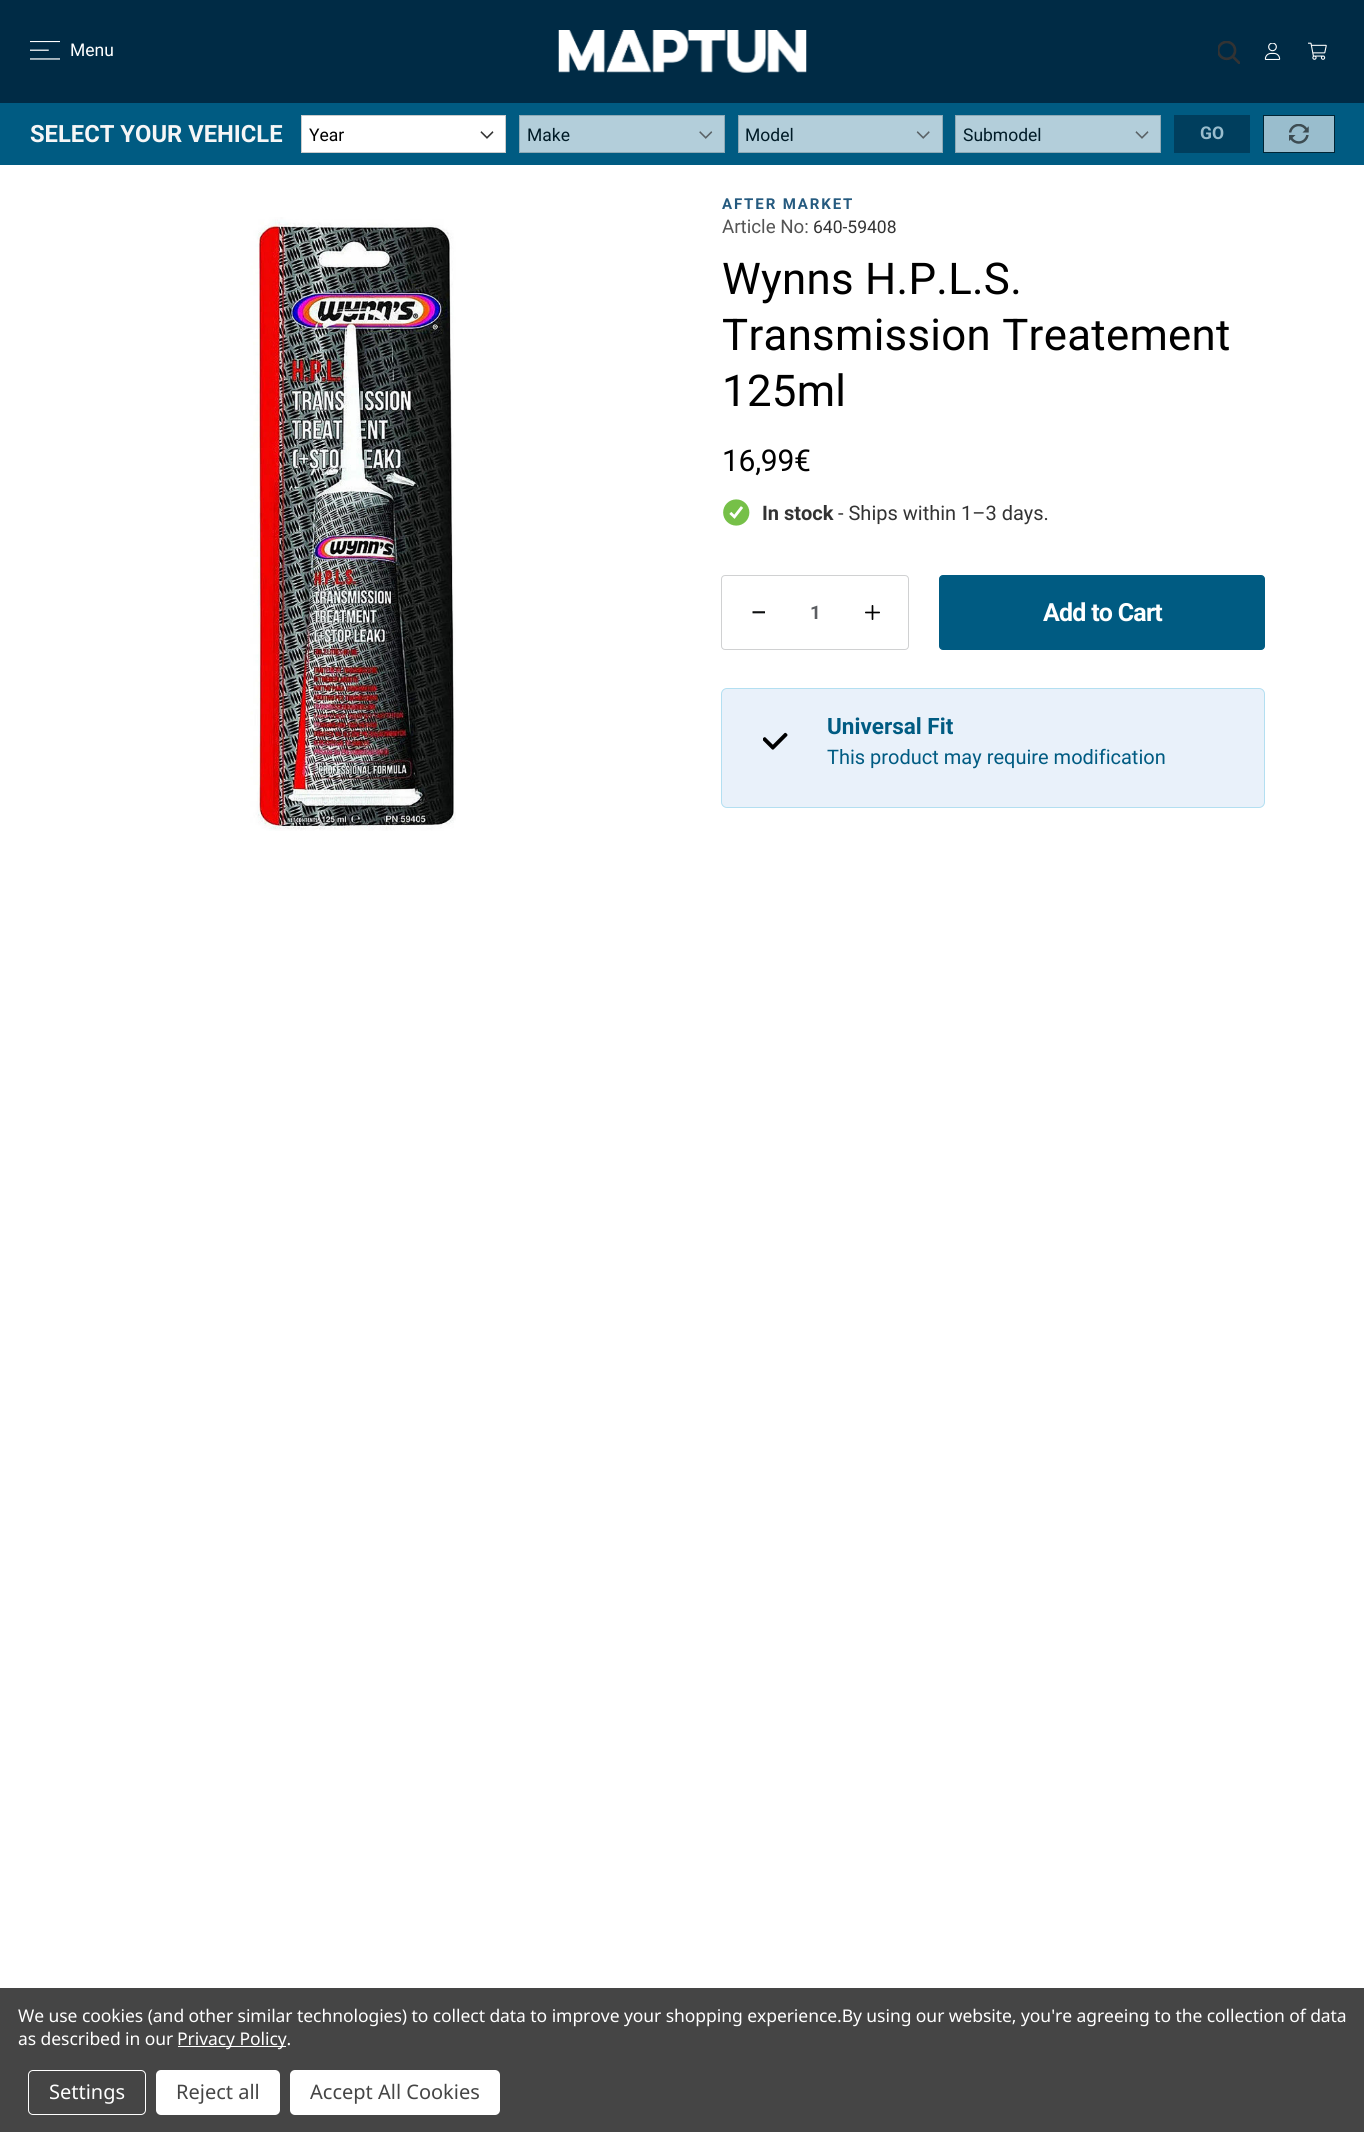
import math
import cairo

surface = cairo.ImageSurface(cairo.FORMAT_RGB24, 1364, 2132)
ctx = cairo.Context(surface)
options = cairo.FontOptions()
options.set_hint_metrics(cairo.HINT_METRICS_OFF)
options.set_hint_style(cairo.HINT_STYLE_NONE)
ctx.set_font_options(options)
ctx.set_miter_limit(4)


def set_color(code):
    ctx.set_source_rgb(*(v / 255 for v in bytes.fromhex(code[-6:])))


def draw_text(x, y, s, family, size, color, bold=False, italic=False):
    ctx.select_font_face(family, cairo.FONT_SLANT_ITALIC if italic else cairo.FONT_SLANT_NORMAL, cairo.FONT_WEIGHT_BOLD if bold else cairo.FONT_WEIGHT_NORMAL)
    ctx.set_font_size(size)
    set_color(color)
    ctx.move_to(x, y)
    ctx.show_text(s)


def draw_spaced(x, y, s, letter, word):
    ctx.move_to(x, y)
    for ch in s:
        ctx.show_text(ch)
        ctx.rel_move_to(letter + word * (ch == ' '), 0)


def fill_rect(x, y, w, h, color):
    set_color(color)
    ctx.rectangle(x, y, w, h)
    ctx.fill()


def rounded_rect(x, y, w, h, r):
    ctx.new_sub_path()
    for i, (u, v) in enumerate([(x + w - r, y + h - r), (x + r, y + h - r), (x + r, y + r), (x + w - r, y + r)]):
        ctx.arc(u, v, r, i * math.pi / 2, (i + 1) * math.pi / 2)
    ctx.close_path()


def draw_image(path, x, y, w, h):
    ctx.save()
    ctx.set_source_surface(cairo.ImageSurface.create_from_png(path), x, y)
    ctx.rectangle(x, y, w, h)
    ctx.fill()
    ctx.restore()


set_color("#ffffff")
ctx.paint()
fill_rect(0, 0, 1364, 103, "#002b45")
draw_image("assets/img1.png", 30, 41, 30, 19)
draw_text(70, 56, "Menu", "Roboto", 17.5, "#ffffff")
draw_image("assets/img2.png", 558, 30, 249, 43)
draw_image("assets/img3.png", 1218, 41, 22, 23)
draw_image("assets/img4.png", 1264, 43, 17, 17)
draw_image("assets/img5.png", 1308, 42, 19, 18)
fill_rect(0, 103, 1364, 62, "#005b82")
draw_text(30, 142, "SELECT YOUR VEHICLE", "Roboto", 23.75, "#f6f6f6", bold=True)
fill_rect(302, 116, 203, 36, "#ffffff")
draw_image("assets/img6.png", 480, 131, 14, 8)
ctx.rectangle(301.5, 115.5, 204, 37)
set_color("#cccccc")
ctx.set_line_width(1)
ctx.stroke()
draw_text(309, 141, "Year", "Roboto", 17.5, "#000000")
fill_rect(520, 116, 204, 36, "#b3ceda")
draw_image("assets/img7.png", 699, 131, 14, 8)
ctx.rectangle(519.5, 115.5, 205, 37)
set_color("#8faab6")
ctx.stroke()
draw_text(527, 141, "Make", "Roboto", 17.5, "#001b27")
fill_rect(739, 116, 203, 36, "#b3ceda")
draw_image("assets/img8.png", 916, 131, 14, 8)
ctx.rectangle(738.5, 115.5, 204, 37)
set_color("#8faab6")
ctx.stroke()
draw_text(745, 141, "Model", "Roboto", 17.5, "#001b27")
fill_rect(956, 116, 204, 36, "#b3ceda")
draw_image("assets/img9.png", 1135, 131, 14, 8)
ctx.rectangle(955.5, 115.5, 205, 37)
set_color("#8faab6")
ctx.stroke()
draw_text(963, 141, "Submodel", "Roboto", 17.5, "#001b27")
fill_rect(1174, 115, 76, 38, "#003e5d")
draw_text(1200, 139, "GO", "Roboto", 17.5, "#99bdcd", bold=True)
ctx.rectangle(1263.5, 115.5, 71, 37)
ctx.fill_preserve()
set_color("#002434")
ctx.stroke()
draw_image("assets/img10.png", 1289, 124, 20, 20)
draw_image("assets/img11.png", 250, 217, 206, 614)
ctx.set_font_size(15)
set_color("#255a7f")
draw_spaced(722, 209, "AFTER MARKET", 1.9, 0)
draw_text(722, 233, "Article No:", "Roboto", 18.75, "#555555")
draw_text(813, 233, "640-59408", "Roboto", 17.5, "#333333")
ctx.set_font_size(43.75)
set_color("#000000")
draw_spaced(722, 294, "Wynns H.P.L.S.", 0.3, 0)
draw_spaced(722, 350, "Transmission Treatement", 0.3, 0)
draw_spaced(722, 406, "125ml", 0.3, 0)
ctx.set_font_size(30)
draw_spaced(722, 471, "16,99€", -0.25, 0)
draw_image("assets/img12.png", 723, 499, 27, 27)
draw_text(762, 520, "In stock", "Roboto", 20, "#333333", bold=True)
draw_text(838, 520, "- Ships within 1–3 days.", "Roboto", 20, "#333333")
rounded_rect(721.5, 575.5, 187, 74, 3.5)
set_color("#d0d1d2")
ctx.stroke()
draw_image("assets/img13.png", 752, 611, 13, 3)
draw_text(810, 619, "1", "Roboto", 18.75, "#5c5e62", bold=True)
draw_image("assets/img14.png", 865, 605, 15, 15)
set_color("#005b82")
rounded_rect(939.5, 575.5, 325, 74, 3.5)
ctx.fill_preserve()
ctx.stroke()
ctx.set_font_size(25)
set_color("#ffffff")
draw_spaced(1043, 621, "Add to Cart", -0.75, 0)
set_color("#e9f1fa")
rounded_rect(721.5, 688.5, 543, 119, 5.5)
ctx.fill_preserve()
set_color("#b3dff1")
ctx.stroke()
draw_image("assets/img15.png", 763, 732, 25, 18)
draw_text(827, 734, "Universal Fit", "Roboto", 22.5, "#005b82", bold=True)
draw_text(827, 764, "This product may require modification", "Roboto", 20, "#005b82")
fill_rect(0, 1988, 1364, 144, "#454545")
ctx.select_font_face("Noto Sans")
ctx.set_font_size(17.5)
set_color("#ffffff")
draw_spaced(18, 2022, "We use cookies (and other similar technologies) to collect data to improve your shopping experience.By using our website, you're agreeing to the collection of data", -0.06, 0)
draw_spaced(18, 2045, "as described in our", -0.06, 0)
fill_rect(178, 2046, 108, 1, "#ffffff")
draw_spaced(177, 2045, "Privacy Policy.", -0.06, 0)
rounded_rect(28.5, 2070.5, 117, 44, 4.5)
ctx.stroke()
draw_text(49, 2099, "Settings", "Noto Sans", 20, "#ffffff")
rounded_rect(156, 2070, 124, 45, 5)
ctx.fill()
draw_text(176, 2099, "Reject all", "Noto Sans", 20, "#454545")
set_color("#ffffff")
rounded_rect(290, 2070, 210, 45, 5)
ctx.fill()
draw_text(310, 2099, "Accept All Cookies", "Noto Sans", 20, "#454545")
surface.write_to_png("output.png")
